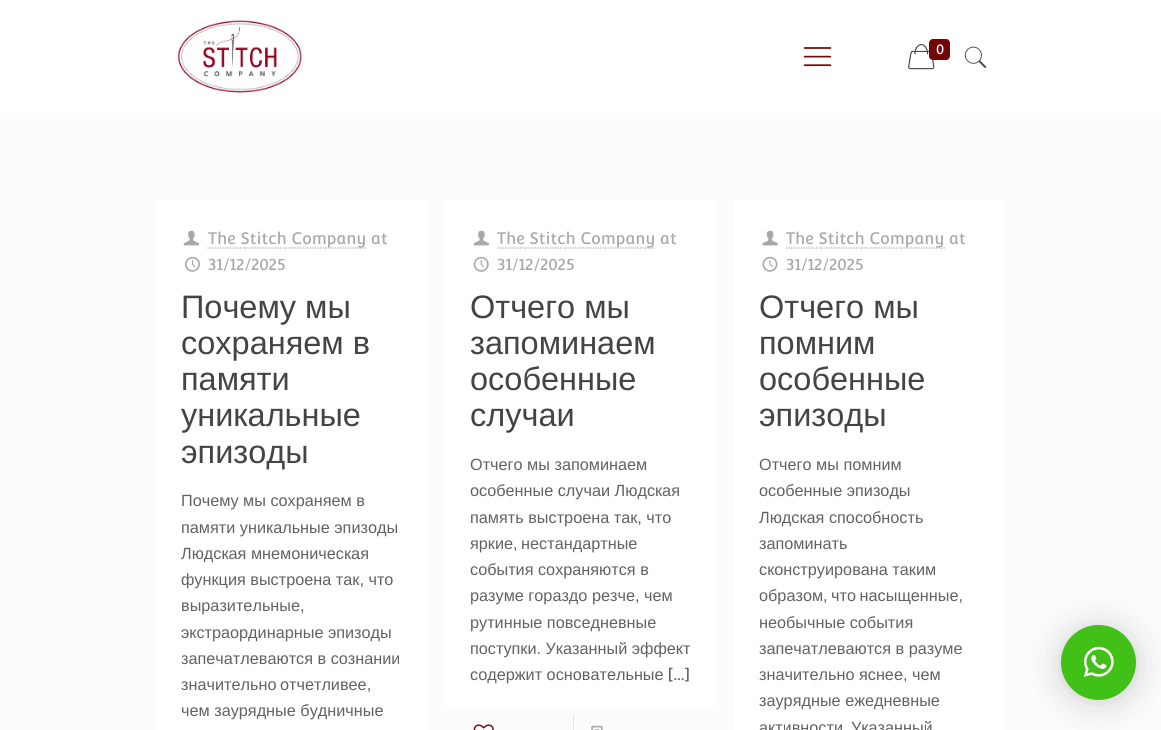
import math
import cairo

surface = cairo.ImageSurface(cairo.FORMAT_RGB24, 1161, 730)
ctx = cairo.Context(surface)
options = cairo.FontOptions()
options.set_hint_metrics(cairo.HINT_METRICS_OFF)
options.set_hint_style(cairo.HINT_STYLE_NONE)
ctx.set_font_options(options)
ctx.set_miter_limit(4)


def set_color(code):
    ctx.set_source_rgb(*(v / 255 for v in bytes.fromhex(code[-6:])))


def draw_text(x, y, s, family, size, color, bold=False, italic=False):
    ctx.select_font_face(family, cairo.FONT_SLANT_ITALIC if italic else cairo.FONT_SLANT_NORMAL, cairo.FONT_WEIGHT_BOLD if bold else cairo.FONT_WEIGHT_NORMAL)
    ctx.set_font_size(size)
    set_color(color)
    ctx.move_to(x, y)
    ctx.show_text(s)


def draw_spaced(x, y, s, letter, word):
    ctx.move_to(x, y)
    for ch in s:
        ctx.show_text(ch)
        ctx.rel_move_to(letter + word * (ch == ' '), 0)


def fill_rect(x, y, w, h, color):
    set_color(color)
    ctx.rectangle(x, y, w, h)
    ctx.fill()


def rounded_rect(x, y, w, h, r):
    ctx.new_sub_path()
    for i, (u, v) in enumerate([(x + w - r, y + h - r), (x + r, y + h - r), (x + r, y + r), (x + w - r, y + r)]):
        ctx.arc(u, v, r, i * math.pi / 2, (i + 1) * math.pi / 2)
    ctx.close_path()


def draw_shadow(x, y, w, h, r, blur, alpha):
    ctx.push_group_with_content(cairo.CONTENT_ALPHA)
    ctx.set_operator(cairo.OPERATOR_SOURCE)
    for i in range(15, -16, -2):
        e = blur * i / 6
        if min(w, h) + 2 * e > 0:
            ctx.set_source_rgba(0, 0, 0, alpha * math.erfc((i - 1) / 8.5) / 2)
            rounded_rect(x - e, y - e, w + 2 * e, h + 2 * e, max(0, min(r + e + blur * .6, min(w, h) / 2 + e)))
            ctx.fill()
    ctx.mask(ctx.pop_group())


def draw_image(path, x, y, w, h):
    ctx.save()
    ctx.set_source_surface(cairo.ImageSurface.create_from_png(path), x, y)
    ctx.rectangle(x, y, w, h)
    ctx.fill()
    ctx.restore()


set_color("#fcfcfc")
ctx.paint()
fill_rect(0, 0, 1161, 113, "#ffffff")
draw_image("assets/img1.png", 177, 20, 125, 73)
draw_image("assets/img2.png", 803, 47, 29, 20)
draw_image("assets/img3.png", 908, 44, 27, 26)
set_color("#720707")
rounded_rect(929, 39, 21, 21, 4)
ctx.fill()
draw_text(936, 54, "0", "Convergence", 14, "#ffffff")
draw_image("assets/img4.png", 964, 46, 23, 23)
fill_rect(156, 200, 272, 530, "#ffffff")
draw_image("assets/img5.png", 183, 230, 16, 16)
ctx.new_path()
ctx.move_to(207.5, 248)
ctx.line_to(366, 248)
set_color("#a8a8a8")
ctx.set_line_width(1.2)
ctx.set_dash([1.25, 1.25])
ctx.stroke()
draw_text(208, 244, "The Stitch Company at", "Convergence", 16.25, "#a8a8a8")
draw_image("assets/img6.png", 185, 256, 15, 16)
draw_text(208, 270, "31/12/2025", "Convergence", 16.25, "#a8a8a8")
draw_text(181, 318, "Почему мы", "Liberation Sans", 32.5, "#444444")
draw_text(181, 354, "сохраняем в", "Liberation Sans", 32.5, "#444444")
draw_text(181, 390, "памяти", "Liberation Sans", 32.5, "#444444")
draw_text(181, 426, "уникальные", "Liberation Sans", 32.5, "#444444")
draw_text(181, 463, "эпизоды", "Liberation Sans", 32.5, "#444444")
draw_text(181, 506, "Почему мы сохраняем в", "Liberation Sans", 16.25, "#626262")
draw_text(181, 533, "памяти уникальные эпизоды", "Liberation Sans", 16.25, "#626262")
draw_text(181, 559, "Людская мнемоническая", "Liberation Sans", 16.25, "#626262")
draw_text(181, 585, "функция выстроена так, что", "Liberation Sans", 16.25, "#626262")
draw_text(181, 611, "выразительные,", "Liberation Sans", 16.25, "#626262")
draw_text(181, 638, "экстраординарные эпизоды", "Liberation Sans", 16.25, "#626262")
draw_text(181, 664, "запечатлеваются в сознании", "Liberation Sans", 16.25, "#626262")
draw_spaced(181, 690, "значительно отчетливее,", 0, -1)
draw_text(181, 716, "чем заурядные будничные", "Liberation Sans", 16.25, "#626262")
fill_rect(445, 200, 271, 506, "#ffffff")
draw_image("assets/img5.png", 473, 230, 16, 16)
ctx.new_path()
ctx.move_to(497.5, 248)
ctx.line_to(655, 248)
set_color("#a8a8a8")
ctx.stroke()
draw_text(497, 244, "The Stitch Company at", "Convergence", 16.25, "#a8a8a8")
draw_image("assets/img7.png", 473, 256, 16, 16)
draw_text(497, 270, "31/12/2025", "Convergence", 16.25, "#a8a8a8")
draw_text(470, 318, "Отчего мы", "Liberation Sans", 32.5, "#444444")
draw_text(470, 354, "запоминаем", "Liberation Sans", 32.5, "#444444")
draw_text(470, 390, "особенные", "Liberation Sans", 32.5, "#444444")
draw_text(470, 426, "случаи", "Liberation Sans", 32.5, "#444444")
draw_text(470, 470, "Отчего мы запоминаем", "Liberation Sans", 16.25, "#626262")
draw_text(470, 496, "особенные случаи Людская", "Liberation Sans", 16.25, "#626262")
draw_text(470, 523, "память выстроена так, что", "Liberation Sans", 16.25, "#626262")
draw_spaced(470, 549, "яркие, нестандартные", 0, -1)
draw_text(470, 575, "события сохраняются в", "Liberation Sans", 16.25, "#626262")
draw_text(470, 601, "разуме гораздо резче, чем", "Liberation Sans", 16.25, "#626262")
draw_text(470, 628, "рутинные повседневные", "Liberation Sans", 16.25, "#626262")
draw_text(470, 654, "поступки. Указанный эффект", "Liberation Sans", 16.25, "#626262")
draw_text(470, 680, "содержит основательные", "Liberation Sans", 16.25, "#626262")
draw_text(668, 680, "[…]", "Convergence", 16.25, "#626262")
draw_image("assets/img8.png", 473, 724, 21, 6)
fill_rect(573, 715, 1, 15, "#e6e6e6")
draw_image("assets/img9.png", 591, 725, 12, 5)
fill_rect(734, 200, 271, 530, "#ffffff")
draw_image("assets/img10.png", 762, 230, 16, 16)
ctx.new_path()
ctx.move_to(786, 248)
ctx.line_to(945, 248)
set_color("#a8a8a8")
ctx.stroke()
draw_text(786, 244, "The Stitch Company at", "Convergence", 16.25, "#a8a8a8")
draw_image("assets/img11.png", 762, 256, 16, 16)
draw_text(786, 270, "31/12/2025", "Convergence", 16.25, "#a8a8a8")
draw_text(759, 318, "Отчего мы", "Liberation Sans", 32.5, "#444444")
draw_text(759, 354, "помним", "Liberation Sans", 32.5, "#444444")
draw_text(759, 390, "особенные", "Liberation Sans", 32.5, "#444444")
draw_text(759, 426, "эпизоды", "Liberation Sans", 32.5, "#444444")
draw_text(759, 470, "Отчего мы помним", "Liberation Sans", 16.25, "#626262")
draw_text(759, 496, "особенные эпизоды", "Liberation Sans", 16.25, "#626262")
draw_text(759, 523, "Людская способность", "Liberation Sans", 16.25, "#626262")
draw_text(759, 549, "запоминать", "Liberation Sans", 16.25, "#626262")
draw_text(759, 575, "сконструирована таким", "Liberation Sans", 16.25, "#626262")
draw_spaced(759, 601, "образом, что насыщенные,", 0, -1)
draw_text(759, 628, "необычные события", "Liberation Sans", 16.25, "#626262")
draw_text(759, 654, "запечатлеваются в разуме", "Liberation Sans", 16.25, "#626262")
draw_text(759, 680, "значительно яснее, чем", "Liberation Sans", 16.25, "#626262")
draw_text(759, 706, "заурядные ежедневные", "Liberation Sans", 16.25, "#626262")
draw_spaced(759, 733, "активности. Указанный", 0, -1)
set_color("#000000")
draw_shadow(1061, 628, 75, 75, 37.5, 20, 0.16)
draw_shadow(1061, 626, 75, 75, 37.5, 4, 0.06)
set_color("#41c117")
ctx.arc(1098.5, 662.5, 37.5, 0, 2 * math.pi)
ctx.fill()
draw_image("assets/img12.png", 1083, 646, 31, 31)
surface.write_to_png("output.png")
